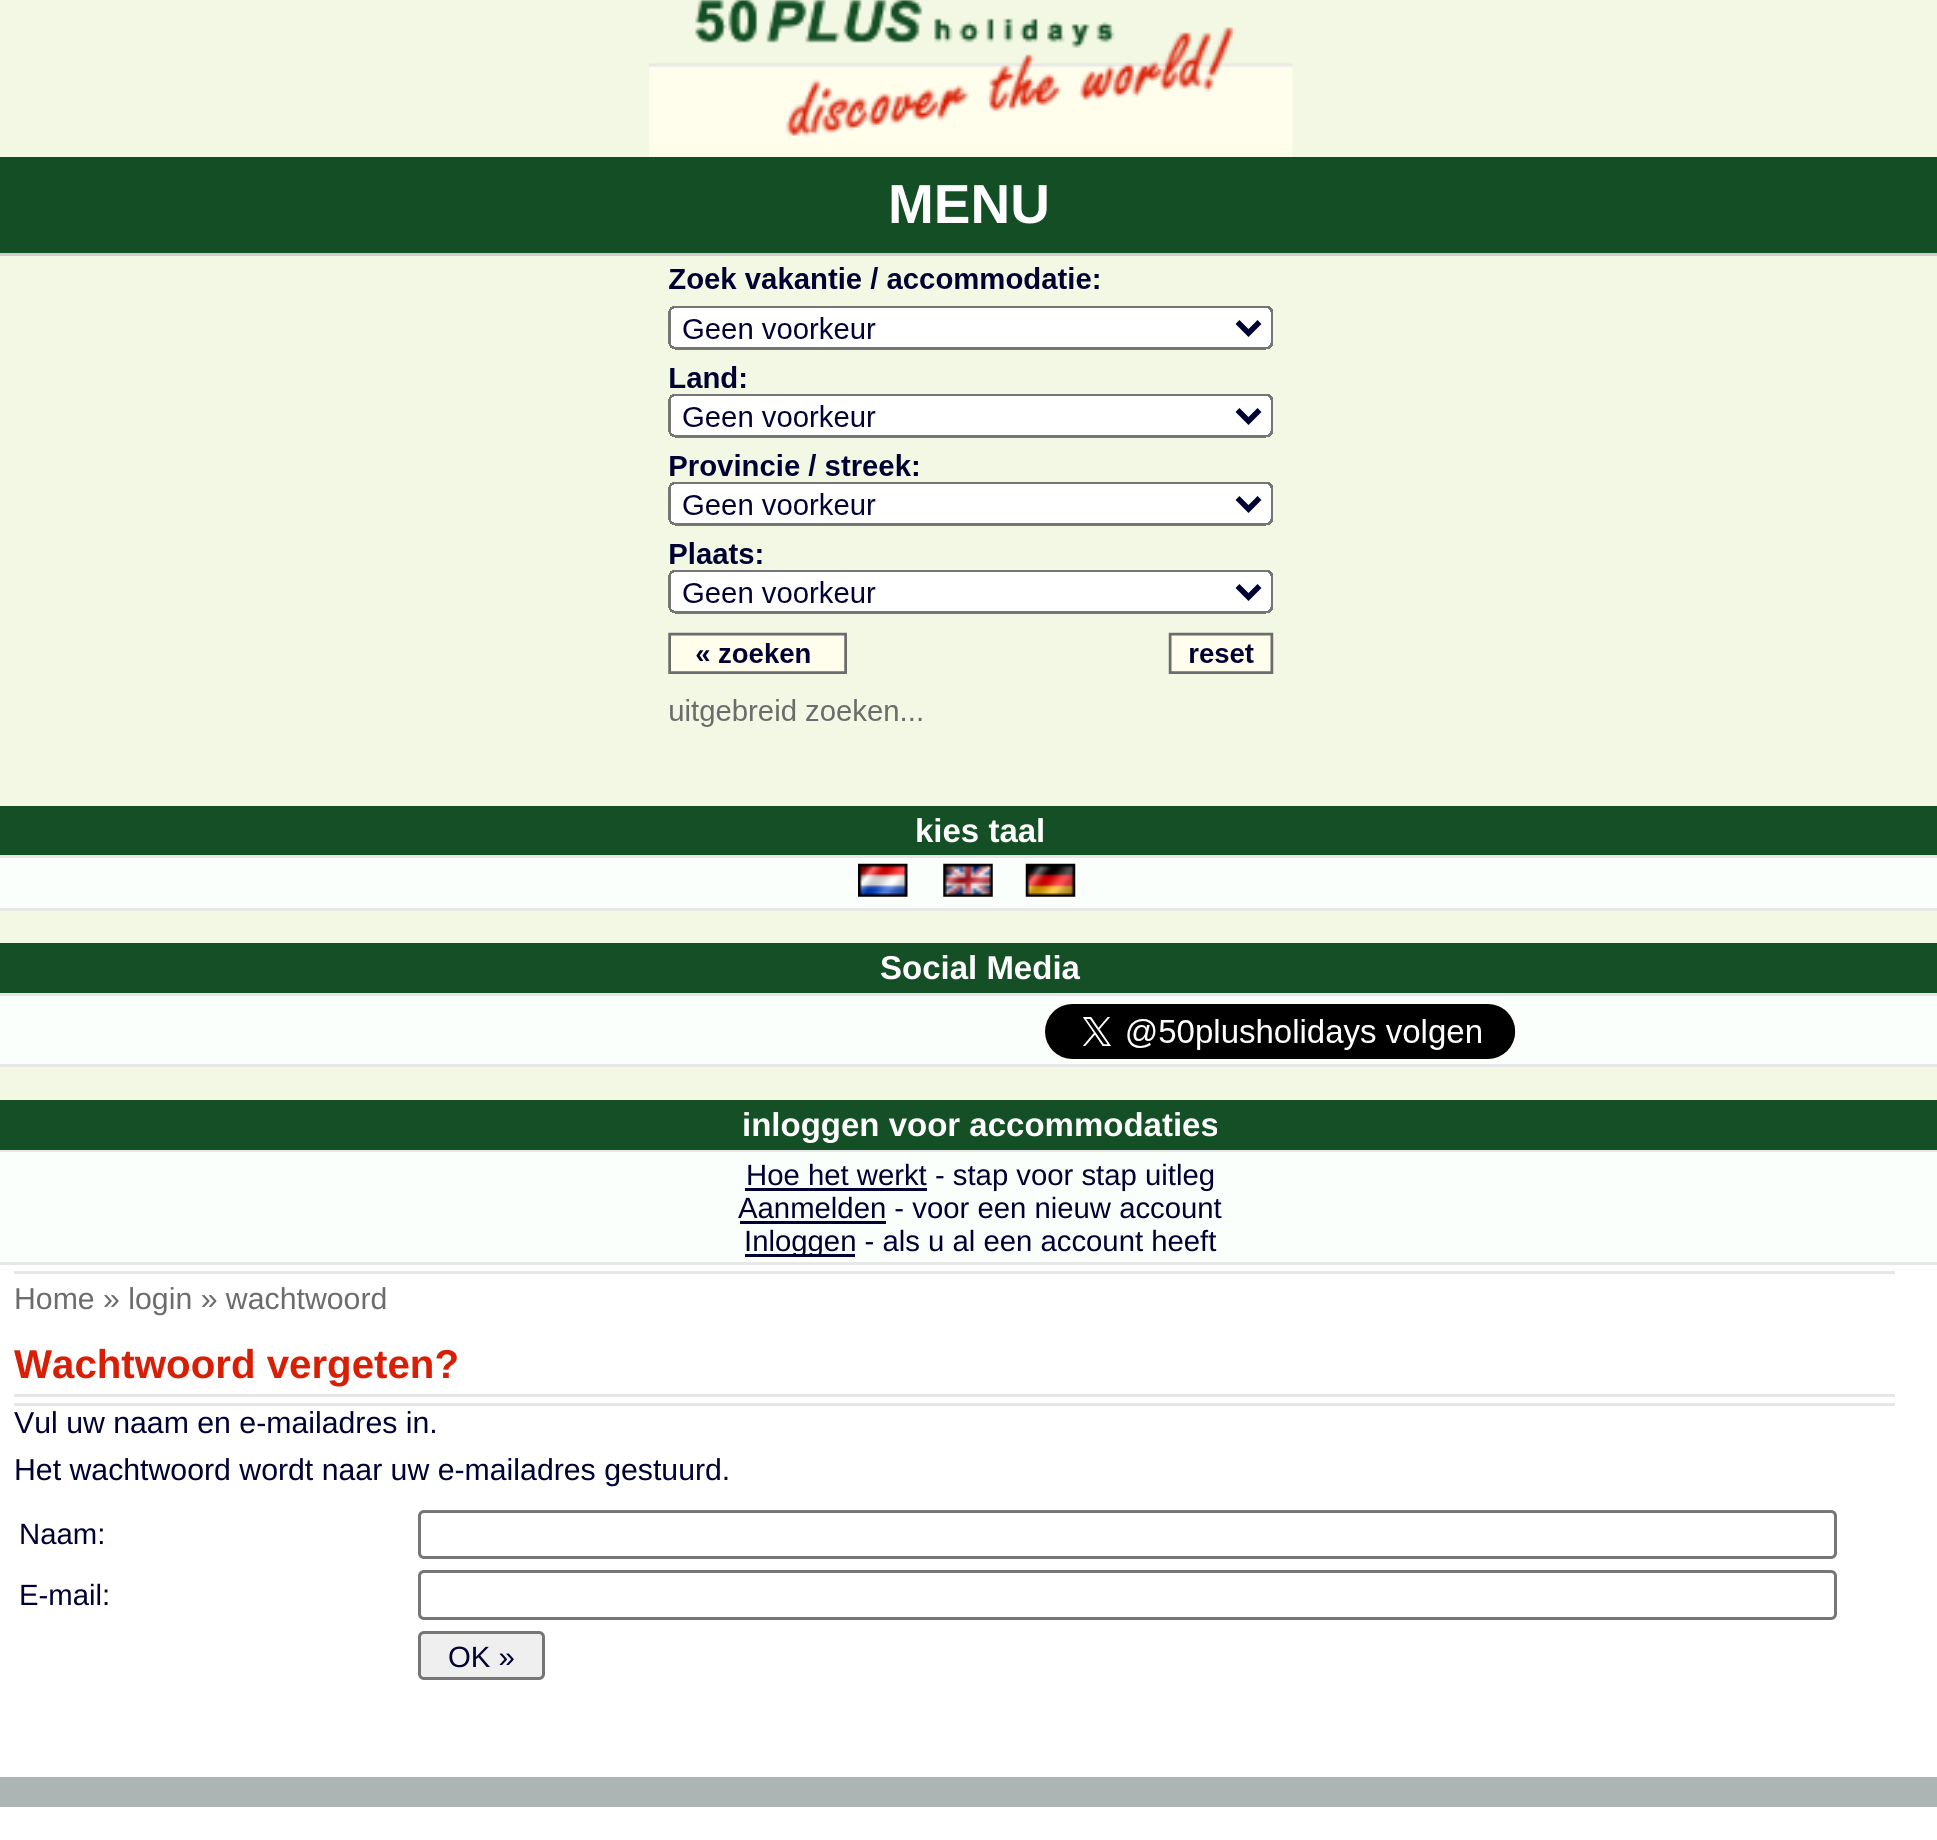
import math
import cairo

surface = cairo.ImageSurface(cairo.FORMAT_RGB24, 1937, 1840)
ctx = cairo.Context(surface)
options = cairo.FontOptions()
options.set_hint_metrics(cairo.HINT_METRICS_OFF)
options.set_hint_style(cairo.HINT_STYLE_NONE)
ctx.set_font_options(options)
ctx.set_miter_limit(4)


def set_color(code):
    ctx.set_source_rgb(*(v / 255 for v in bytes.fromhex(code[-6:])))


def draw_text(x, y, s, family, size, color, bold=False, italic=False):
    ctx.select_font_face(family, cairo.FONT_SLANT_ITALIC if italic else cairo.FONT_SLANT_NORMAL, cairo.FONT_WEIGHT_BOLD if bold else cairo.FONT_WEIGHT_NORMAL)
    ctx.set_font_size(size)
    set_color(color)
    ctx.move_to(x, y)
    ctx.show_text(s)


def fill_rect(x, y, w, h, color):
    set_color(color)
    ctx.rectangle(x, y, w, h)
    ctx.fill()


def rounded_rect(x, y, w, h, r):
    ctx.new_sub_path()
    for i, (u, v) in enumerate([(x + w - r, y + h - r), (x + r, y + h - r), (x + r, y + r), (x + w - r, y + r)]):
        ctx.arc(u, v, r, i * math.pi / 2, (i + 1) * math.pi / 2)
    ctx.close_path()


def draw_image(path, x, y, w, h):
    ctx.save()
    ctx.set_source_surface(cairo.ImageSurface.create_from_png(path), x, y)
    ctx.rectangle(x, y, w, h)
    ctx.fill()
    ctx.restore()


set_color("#acb5b4")
ctx.paint()
fill_rect(0, 1265, 1937, 512, "#ffffff")
fill_rect(0, 0, 1937, 157, "#f2f8e3")
draw_image("assets/img1.png", 649, 0, 644, 157)
fill_rect(0, 157, 1937, 96, "#134e24")
fill_rect(0, 253, 1937, 3, "#cccccc")
draw_text(888, 223, "MENU", "Liberation Sans", 55, "#ffffff", bold=True)
fill_rect(0, 256, 1937, 844, "#f2f8e3")
draw_image("assets/img2.png", 668, 267, 606, 460)
fill_rect(0, 806, 1937, 49, "#144f25")
fill_rect(0, 855, 1937, 3, "#e7e7e7")
draw_text(915, 842, "kies taal", "Liberation Sans", 33, "#ffffff", bold=True)
fill_rect(0, 858, 1937, 50, "#fbfffc")
fill_rect(0, 908, 1937, 3, "#e7e7e7")
draw_image("assets/img3.png", 858, 863, 50, 34)
draw_image("assets/img4.png", 943, 863, 50, 34)
draw_image("assets/img5.png", 1025, 863, 51, 34)
fill_rect(0, 943, 1937, 50, "#144f25")
fill_rect(0, 993, 1937, 3, "#e7e7e7")
draw_text(880, 979, "Social Media", "Liberation Sans", 33, "#ffffff", bold=True)
fill_rect(0, 996, 1937, 68, "#fbfffc")
fill_rect(0, 1064, 1937, 3, "#e7e7e7")
draw_image("assets/img6.png", 1045, 1004, 471, 55)
fill_rect(0, 1100, 1937, 50, "#144f25")
fill_rect(0, 1150, 1937, 2, "#e7e7e7")
draw_text(742, 1136, "inloggen voor accommodaties", "Liberation Sans", 33, "#ffffff", bold=True)
fill_rect(0, 1152, 1937, 110, "#fbfffc")
fill_rect(0, 1262, 1937, 3, "#e7e7e7")
fill_rect(745, 1188, 182, 3, "#000033")
draw_text(746, 1185, "Hoe het werkt - stap voor stap uitleg", "Liberation Sans", 29.3, "#000033")
draw_text(738, 1218, "Aanmelden - voor een nieuw account", "Liberation Sans", 29.3, "#000033")
fill_rect(740, 1221, 146, 3, "#000033")
fill_rect(745, 1254, 110, 3, "#000033")
draw_text(744, 1251, "Inloggen - als u al een account heeft", "Liberation Sans", 29.3, "#000033")
fill_rect(14, 1271, 1881, 3, "#e7e7e7")
draw_text(14, 1309, "Home » login » wachtwoord", "Liberation Sans", 30.25, "#6c6c6c")
draw_text(14, 1378, "Wachtwoord vergeten?", "Liberation Sans", 40.25, "#d81e05", bold=True)
fill_rect(14, 1394, 1881, 3, "#e7e7e7")
fill_rect(14, 1403, 1881, 3, "#e7e7e7")
draw_text(14, 1433, "Vul uw naam en e-mailadres in.", "Liberation Sans", 30.25, "#000033")
draw_text(14, 1480, "Het wachtwoord wordt naar uw e-mailadres gestuurd.", "Liberation Sans", 30.25, "#000033")
draw_text(19, 1544, "Naam:", "Liberation Sans", 29.3, "#000033")
rounded_rect(419.5, 1511.5, 1416, 46, 4.5)
set_color("#767676")
ctx.set_line_width(3)
ctx.stroke()
draw_text(19, 1605, "E-mail:", "Liberation Sans", 29.3, "#000033")
rounded_rect(419.5, 1571.5, 1416, 47, 4.5)
set_color("#767676")
ctx.stroke()
set_color("#efefef")
rounded_rect(419.5, 1632.5, 124, 46, 4.5)
ctx.fill_preserve()
set_color("#767676")
ctx.stroke()
draw_text(448, 1667, "OK »", "Liberation Sans", 29.3, "#000033")
fill_rect(0, 1807, 1937, 33, "#ffffff")
surface.write_to_png("output.png")
